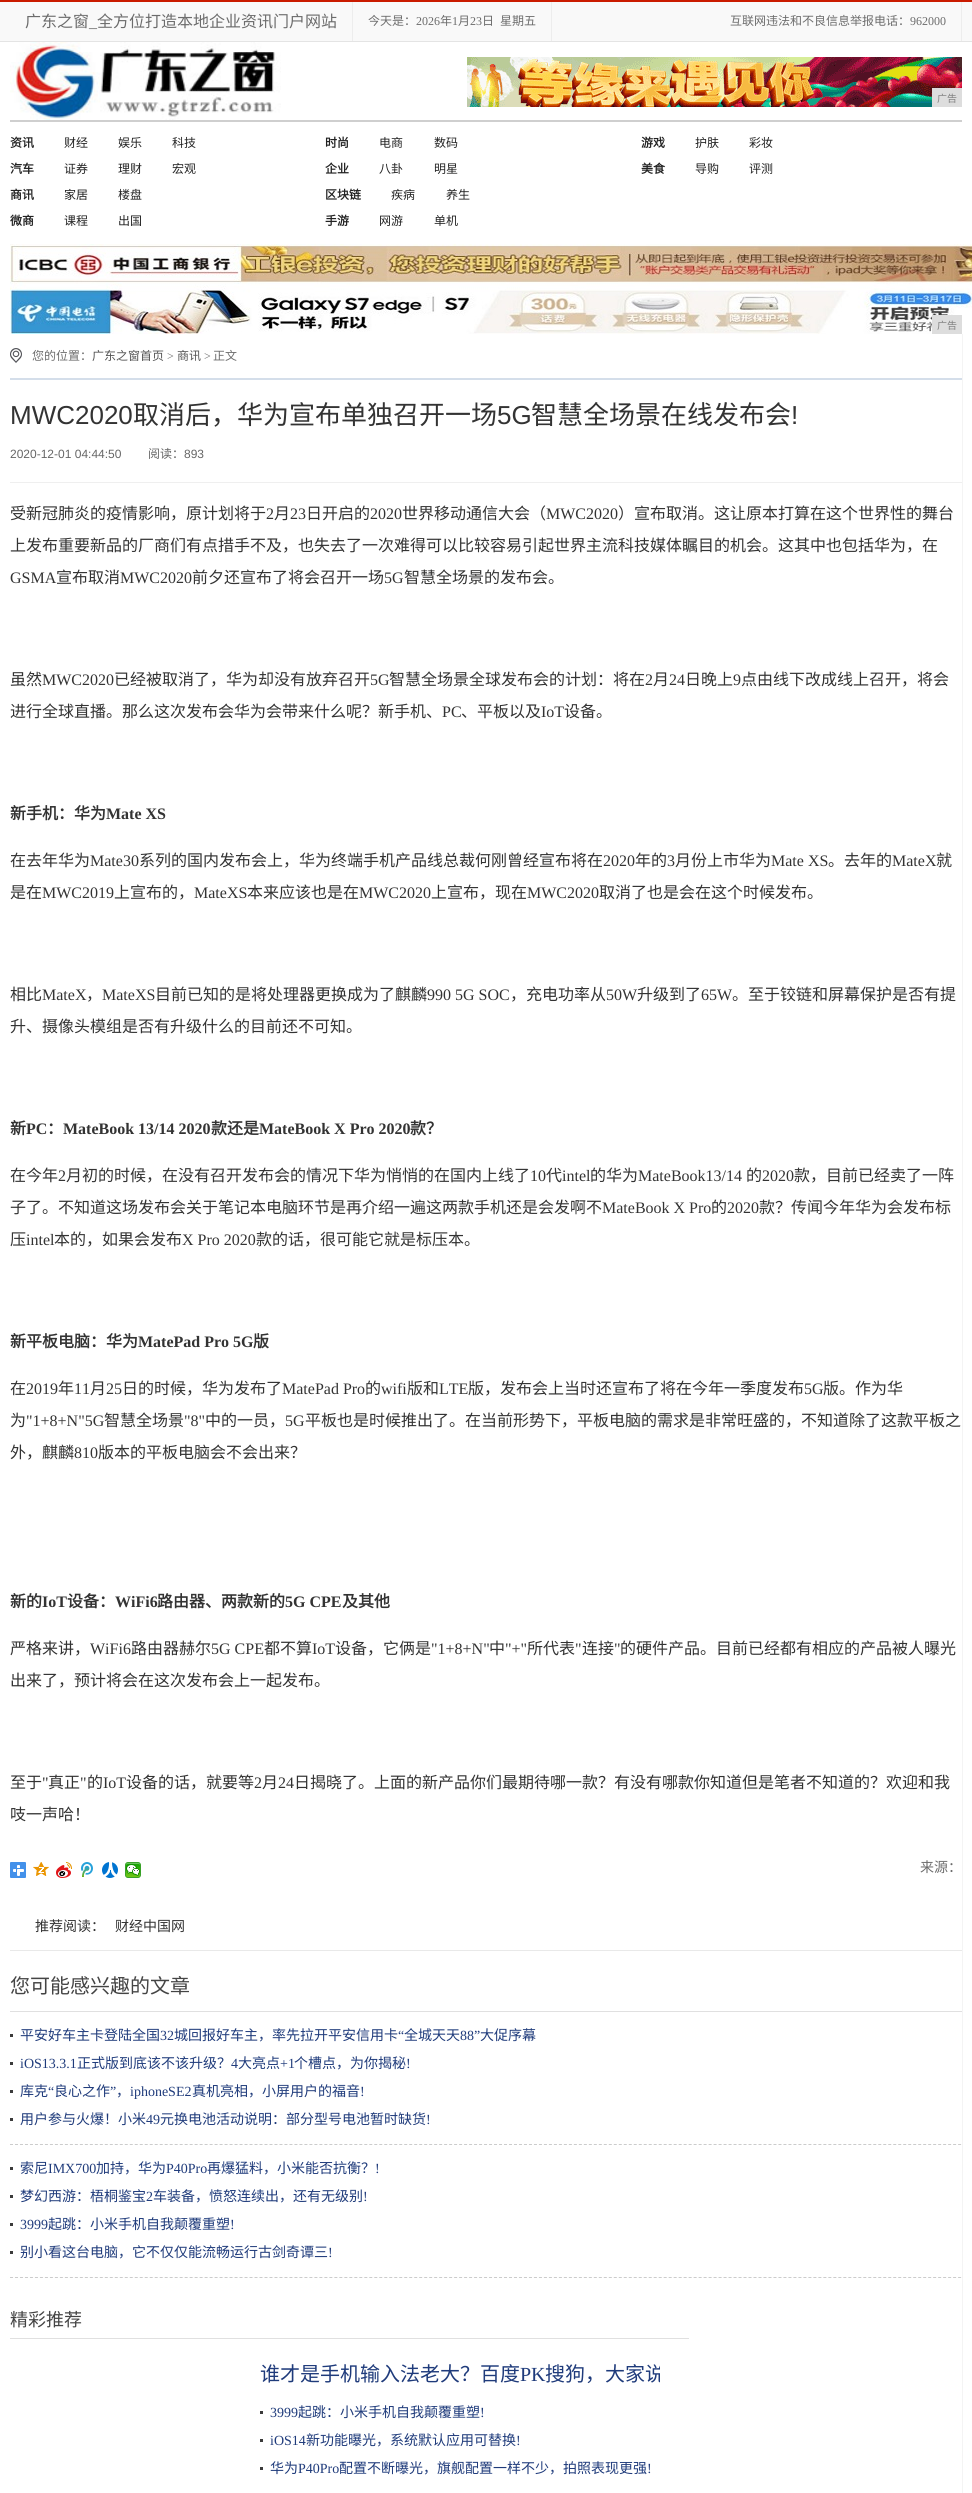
import math
import cairo

surface = cairo.ImageSurface(cairo.FORMAT_RGB24, 972, 2493)
ctx = cairo.Context(surface)
options = cairo.FontOptions()
options.set_hint_metrics(cairo.HINT_METRICS_OFF)
options.set_hint_style(cairo.HINT_STYLE_NONE)
ctx.set_font_options(options)
ctx.set_miter_limit(4)


def set_color(code):
    ctx.set_source_rgb(*(v / 255 for v in bytes.fromhex(code[-6:])))


def draw_text(x, y, s, family, size, color, bold=False, italic=False):
    ctx.select_font_face(family, cairo.FONT_SLANT_ITALIC if italic else cairo.FONT_SLANT_NORMAL, cairo.FONT_WEIGHT_BOLD if bold else cairo.FONT_WEIGHT_NORMAL)
    ctx.set_font_size(size)
    set_color(color)
    ctx.move_to(x, y)
    ctx.show_text(s)


def fill_rect(x, y, w, h, color):
    set_color(color)
    ctx.rectangle(x, y, w, h)
    ctx.fill()


def draw_image(path, x, y, w, h):
    ctx.save()
    ctx.set_source_surface(cairo.ImageSurface.create_from_png(path), x, y)
    ctx.rectangle(x, y, w, h)
    ctx.fill()
    ctx.restore()


set_color("#ffffff")
ctx.paint()
fill_rect(0, 2, 972, 39, "#f9f9f9")
fill_rect(0, 0, 972, 2, "#ca1b00")
fill_rect(0, 41, 972, 1, "#e4e4e4")
fill_rect(352, 2, 1, 39, "#ededed")
draw_text(25, 27, "广东之窗", "Noto Sans CJK SC", 16, "#6c6c6c")
draw_text(89, 27, "_", "Liberation Serif", 16, "#6c6c6c")
draw_text(97, 27, "全方位打造本地企业资讯门户网站", "Noto Sans CJK SC", 16, "#6c6c6c")
fill_rect(551, 2, 1, 39, "#ededed")
draw_text(368, 25, "今天是：", "Noto Sans CJK SC", 12, "#6c6c6c")
draw_text(416, 25, "2026", "Liberation Serif", 12, "#6c6c6c")
draw_text(440, 25, "年", "Noto Sans CJK SC", 12, "#6c6c6c")
draw_text(452, 25, "1", "Liberation Serif", 12, "#6c6c6c")
draw_text(458, 25, "月", "Noto Sans CJK SC", 12, "#6c6c6c")
draw_text(470, 25, "23", "Liberation Serif", 12, "#6c6c6c")
draw_text(482, 25, "日", "Noto Sans CJK SC", 12, "#6c6c6c")
draw_text(500, 25, "星期五", "Noto Sans CJK SC", 12, "#6c6c6c")
fill_rect(961, 2, 1, 39, "#ededed")
draw_text(730, 25, "互联网违法和不良信息举报电话：", "Noto Sans CJK SC", 12, "#6c6c6c")
draw_text(910, 25, "962000", "Liberation Serif", 12, "#6c6c6c")
fill_rect(10, 120, 952, 2, "#cfcfcf")
draw_image("assets/img1.png", 10, 42, 271, 78)
draw_image("assets/img2.png", 467, 57, 495, 50)
fill_rect(932, 88, 30, 19, "#dddddd")
draw_text(937, 102, "广告", "Noto Sans CJK SC", 10, "#808080")
draw_text(10, 147, "资讯", "Noto Sans CJK SC", 12, "#222222", bold=True)
draw_text(64, 147, "财经", "Noto Sans CJK SC", 12, "#222222")
draw_text(118, 147, "娱乐", "Noto Sans CJK SC", 12, "#222222")
draw_text(172, 147, "科技", "Noto Sans CJK SC", 12, "#222222")
draw_text(10, 173, "汽车", "Noto Sans CJK SC", 12, "#222222", bold=True)
draw_text(64, 173, "证券", "Noto Sans CJK SC", 12, "#222222")
draw_text(118, 173, "理财", "Noto Sans CJK SC", 12, "#222222")
draw_text(172, 173, "宏观", "Noto Sans CJK SC", 12, "#222222")
draw_text(325, 147, "时尚", "Noto Sans CJK SC", 12, "#222222", bold=True)
draw_text(379, 147, "电商", "Noto Sans CJK SC", 12, "#222222")
draw_text(434, 147, "数码", "Noto Sans CJK SC", 12, "#222222")
draw_text(325, 173, "企业", "Noto Sans CJK SC", 12, "#222222", bold=True)
draw_text(379, 173, "八卦", "Noto Sans CJK SC", 12, "#222222")
draw_text(434, 173, "明星", "Noto Sans CJK SC", 12, "#222222")
draw_text(641, 147, "游戏", "Noto Sans CJK SC", 12, "#222222", bold=True)
draw_text(695, 147, "护肤", "Noto Sans CJK SC", 12, "#222222")
draw_text(749, 147, "彩妆", "Noto Sans CJK SC", 12, "#222222")
draw_text(641, 173, "美食", "Noto Sans CJK SC", 12, "#222222", bold=True)
draw_text(695, 173, "导购", "Noto Sans CJK SC", 12, "#222222")
draw_text(749, 173, "评测", "Noto Sans CJK SC", 12, "#222222")
draw_text(10, 199, "商讯", "Noto Sans CJK SC", 12, "#222222", bold=True)
draw_text(64, 199, "家居", "Noto Sans CJK SC", 12, "#222222")
draw_text(118, 199, "楼盘", "Noto Sans CJK SC", 12, "#222222")
draw_text(10, 225, "微商", "Noto Sans CJK SC", 12, "#222222", bold=True)
draw_text(64, 225, "课程", "Noto Sans CJK SC", 12, "#222222")
draw_text(118, 225, "出国", "Noto Sans CJK SC", 12, "#222222")
draw_text(325, 199, "区块链", "Noto Sans CJK SC", 12, "#222222", bold=True)
draw_text(391, 199, "疾病", "Noto Sans CJK SC", 12, "#222222")
draw_text(446, 199, "养生", "Noto Sans CJK SC", 12, "#222222")
draw_text(325, 225, "手游", "Noto Sans CJK SC", 12, "#222222", bold=True)
draw_text(379, 225, "网游", "Noto Sans CJK SC", 12, "#222222")
draw_text(434, 225, "单机", "Noto Sans CJK SC", 12, "#222222")
draw_image("assets/img3.png", 10, 244, 962, 90)
fill_rect(932, 315, 30, 19, "#dddddd")
draw_text(937, 329, "广告", "Noto Sans CJK SC", 10, "#808080")
fill_rect(962, 334, 1, 2159, "#f4f4f4")
draw_image("assets/img4.png", 10, 348, 12, 15)
draw_text(32, 360, "您的位置：", "Noto Sans CJK SC", 12, "#6c6c6c")
draw_text(92, 360, "广东之窗首页", "Noto Sans CJK SC", 12, "#545454")
draw_text(167, 360, ">", "Liberation Serif", 12, "#6c6c6c")
draw_text(177, 360, "商讯", "Noto Sans CJK SC", 12, "#545454")
draw_text(204, 360, ">", "Liberation Serif", 12, "#6c6c6c")
draw_text(213, 360, "正文", "Noto Sans CJK SC", 12, "#6c6c6c")
fill_rect(10, 378, 952, 2, "#d4deea")
draw_text(10, 424, "MWC2020", "Liberation Sans", 26, "#333333")
draw_text(133, 424, "取消后，华为宣布单独召开一场", "Noto Sans CJK SC", 26, "#333333")
draw_text(497, 424, "5G", "Liberation Sans", 26, "#333333")
draw_text(531, 424, "智慧全场景在线发布会", "Noto Sans CJK SC", 26, "#333333")
draw_text(791, 424, "!", "Liberation Sans", 26, "#333333")
fill_rect(10, 482, 952, 1, "#efefef")
draw_text(10, 458, "2020-12-01 04:44:50", "Liberation Sans", 12, "#666666")
draw_text(148, 458, "阅读：", "Noto Sans CJK SC", 12, "#666666")
draw_text(184, 458, "893", "Liberation Sans", 12, "#666666")
draw_text(10, 519, "受新冠肺炎的疫情影响，原计划将于", "Noto Sans CJK SC", 16, "#333333")
draw_text(266, 519, "2", "Liberation Serif", 16, "#333333")
draw_text(274, 519, "月", "Noto Sans CJK SC", 16, "#333333")
draw_text(290, 519, "23", "Liberation Serif", 16, "#333333")
draw_text(306, 519, "日开启的", "Noto Sans CJK SC", 16, "#333333")
draw_text(370, 519, "2020", "Liberation Serif", 16, "#333333")
draw_text(402, 519, "世界移动通信大会（", "Noto Sans CJK SC", 16, "#333333")
draw_text(546, 519, "MWC2020", "Liberation Serif", 16, "#333333")
draw_text(618, 519, "）宣布取消。这让原本打算在这个世界性的舞台", "Noto Sans CJK SC", 16, "#333333")
draw_text(10, 551, "上发布重要新品的厂商们有点措手不及，也失去了一次难得可以比较容易引起世界主流科技媒体瞩目的机会。这其中也包括华为，在", "Noto Sans CJK SC", 16, "#333333")
draw_text(10, 583, "GSMA", "Liberation Serif", 16, "#333333")
draw_text(56, 583, "宣布取消", "Noto Sans CJK SC", 16, "#333333")
draw_text(120, 583, "MWC2020", "Liberation Serif", 16, "#333333")
draw_text(192, 583, "前夕还宣布了将会召开一场", "Noto Sans CJK SC", 16, "#333333")
draw_text(384, 583, "5G", "Liberation Serif", 16, "#333333")
draw_text(404, 583, "智慧全场景的发布会。", "Noto Sans CJK SC", 16, "#333333")
draw_text(10, 685, "虽然", "Noto Sans CJK SC", 16, "#333333")
draw_text(42, 685, "MWC2020", "Liberation Serif", 16, "#333333")
draw_text(114, 685, "已经被取消了，华为却没有放弃召开", "Noto Sans CJK SC", 16, "#333333")
draw_text(370, 685, "5G", "Liberation Serif", 16, "#333333")
draw_text(389, 685, "智慧全场景全球发布会的计划：将在", "Noto Sans CJK SC", 16, "#333333")
draw_text(645, 685, "2", "Liberation Serif", 16, "#333333")
draw_text(653, 685, "月", "Noto Sans CJK SC", 16, "#333333")
draw_text(669, 685, "24", "Liberation Serif", 16, "#333333")
draw_text(685, 685, "日晚上", "Noto Sans CJK SC", 16, "#333333")
draw_text(733, 685, "9", "Liberation Serif", 16, "#333333")
draw_text(741, 685, "点由线下改成线上召开，将会", "Noto Sans CJK SC", 16, "#333333")
draw_text(10, 717, "进行全球直播。那么这次发布会华为会带来什么呢？新手机、", "Noto Sans CJK SC", 16, "#333333")
draw_text(442, 717, "PC", "Liberation Serif", 16, "#333333")
draw_text(461, 717, "、平板以及", "Noto Sans CJK SC", 16, "#333333")
draw_text(541, 717, "IoT", "Liberation Serif", 16, "#333333")
draw_text(564, 717, "设备。", "Noto Sans CJK SC", 16, "#333333")
draw_text(10, 819, "新手机：华为", "Noto Sans CJK SC", 16, "#333333", bold=True)
draw_text(106, 819, "Mate XS", "Liberation Serif", 16, "#333333", bold=True)
draw_text(10, 866, "在去年华为", "Noto Sans CJK SC", 16, "#333333")
draw_text(90, 866, "Mate30", "Liberation Serif", 16, "#333333")
draw_text(139, 866, "系列的国内发布会上，华为终端手机产品线总裁何刚曾经宣布将在", "Noto Sans CJK SC", 16, "#333333")
draw_text(603, 866, "2020", "Liberation Serif", 16, "#333333")
draw_text(635, 866, "年的", "Noto Sans CJK SC", 16, "#333333")
draw_text(667, 866, "3", "Liberation Serif", 16, "#333333")
draw_text(675, 866, "月份上市华为", "Noto Sans CJK SC", 16, "#333333")
draw_text(771, 866, "Mate XS", "Liberation Serif", 16, "#333333")
draw_text(828, 866, "。去年的", "Noto Sans CJK SC", 16, "#333333")
draw_text(892, 866, "MateX", "Liberation Serif", 16, "#333333")
draw_text(936, 866, "就", "Noto Sans CJK SC", 16, "#333333")
draw_text(10, 898, "是在", "Noto Sans CJK SC", 16, "#333333")
draw_text(42, 898, "MWC2019", "Liberation Serif", 16, "#333333")
draw_text(114, 898, "上宣布的，", "Noto Sans CJK SC", 16, "#333333")
draw_text(194, 898, "MateXS", "Liberation Serif", 16, "#333333")
draw_text(247, 898, "本来应该也是在", "Noto Sans CJK SC", 16, "#333333")
draw_text(359, 898, "MWC2020", "Liberation Serif", 16, "#333333")
draw_text(431, 898, "上宣布，现在", "Noto Sans CJK SC", 16, "#333333")
draw_text(527, 898, "MWC2020", "Liberation Serif", 16, "#333333")
draw_text(599, 898, "取消了也是会在这个时候发布。", "Noto Sans CJK SC", 16, "#333333")
draw_text(10, 1000, "相比", "Noto Sans CJK SC", 16, "#333333")
draw_text(42, 1000, "MateX", "Liberation Serif", 16, "#333333")
draw_text(86, 1000, "，", "Noto Sans CJK SC", 16, "#333333")
draw_text(102, 1000, "MateXS", "Liberation Serif", 16, "#333333")
draw_text(155, 1000, "目前已知的是将处理器更换成为了麒麟", "Noto Sans CJK SC", 16, "#333333")
draw_text(427, 1000, "990 5G SOC", "Liberation Serif", 16, "#333333")
draw_text(510, 1000, "，充电功率从", "Noto Sans CJK SC", 16, "#333333")
draw_text(606, 1000, "50W", "Liberation Serif", 16, "#333333")
draw_text(637, 1000, "升级到了", "Noto Sans CJK SC", 16, "#333333")
draw_text(701, 1000, "65W", "Liberation Serif", 16, "#333333")
draw_text(732, 1000, "。至于铰链和屏幕保护是否有提", "Noto Sans CJK SC", 16, "#333333")
draw_text(10, 1032, "升、摄像头模组是否有升级什么的目前还不可知。", "Noto Sans CJK SC", 16, "#333333")
draw_text(10, 1134, "新", "Noto Sans CJK SC", 16, "#333333", bold=True)
draw_text(26, 1134, "PC", "Liberation Serif", 16, "#333333", bold=True)
draw_text(47, 1134, "：", "Noto Sans CJK SC", 16, "#333333", bold=True)
draw_text(63, 1134, "MateBook 13/14 2020", "Liberation Serif", 16, "#333333", bold=True)
draw_text(211, 1134, "款还是", "Noto Sans CJK SC", 16, "#333333", bold=True)
draw_text(259, 1134, "MateBook X Pro 2020", "Liberation Serif", 16, "#333333", bold=True)
draw_text(410, 1134, "款？", "Noto Sans CJK SC", 16, "#333333", bold=True)
draw_text(10, 1181, "在今年", "Noto Sans CJK SC", 16, "#333333")
draw_text(58, 1181, "2", "Liberation Serif", 16, "#333333")
draw_text(66, 1181, "月初的时候，在没有召开发布会的情况下华为悄悄的在国内上线了", "Noto Sans CJK SC", 16, "#333333")
draw_text(530, 1181, "10", "Liberation Serif", 16, "#333333")
draw_text(546, 1181, "代", "Noto Sans CJK SC", 16, "#333333")
draw_text(562, 1181, "intel", "Liberation Serif", 16, "#333333")
draw_text(590, 1181, "的华为", "Noto Sans CJK SC", 16, "#333333")
draw_text(638, 1181, "MateBook13/14", "Liberation Serif", 16, "#333333")
draw_text(746, 1181, "的", "Noto Sans CJK SC", 16, "#333333")
draw_text(762, 1181, "2020", "Liberation Serif", 16, "#333333")
draw_text(794, 1181, "款，目前已经卖了一阵", "Noto Sans CJK SC", 16, "#333333")
draw_text(10, 1213, "子了。不知道这场发布会关于笔记本电脑环节是再介绍一遍这两款手机还是会发啊不", "Noto Sans CJK SC", 16, "#333333")
draw_text(602, 1213, "MateBook X Pro", "Liberation Serif", 16, "#333333")
draw_text(711, 1213, "的", "Noto Sans CJK SC", 16, "#333333")
draw_text(727, 1213, "2020", "Liberation Serif", 16, "#333333")
draw_text(759, 1213, "款？传闻今年华为会发布标", "Noto Sans CJK SC", 16, "#333333")
draw_text(10, 1245, "压", "Noto Sans CJK SC", 16, "#333333")
draw_text(26, 1245, "intel", "Liberation Serif", 16, "#333333")
draw_text(54, 1245, "本的，如果会发布", "Noto Sans CJK SC", 16, "#333333")
draw_text(182, 1245, "X Pro 2020", "Liberation Serif", 16, "#333333")
draw_text(256, 1245, "款的话，很可能它就是标压本。", "Noto Sans CJK SC", 16, "#333333")
draw_text(10, 1347, "新平板电脑：华为", "Noto Sans CJK SC", 16, "#333333", bold=True)
draw_text(138, 1347, "MatePad Pro 5G", "Liberation Serif", 16, "#333333", bold=True)
draw_text(253, 1347, "版", "Noto Sans CJK SC", 16, "#333333", bold=True)
draw_text(10, 1394, "在", "Noto Sans CJK SC", 16, "#333333")
draw_text(26, 1394, "2019", "Liberation Serif", 16, "#333333")
draw_text(58, 1394, "年", "Noto Sans CJK SC", 16, "#333333")
draw_text(74, 1394, "11", "Liberation Serif", 16, "#333333")
draw_text(90, 1394, "月", "Noto Sans CJK SC", 16, "#333333")
draw_text(106, 1394, "25", "Liberation Serif", 16, "#333333")
draw_text(122, 1394, "日的时候，华为发布了", "Noto Sans CJK SC", 16, "#333333")
draw_text(282, 1394, "MatePad Pro", "Liberation Serif", 16, "#333333")
draw_text(365, 1394, "的", "Noto Sans CJK SC", 16, "#333333")
draw_text(381, 1394, "wifi", "Liberation Serif", 16, "#333333")
draw_text(407, 1394, "版和", "Noto Sans CJK SC", 16, "#333333")
draw_text(439, 1394, "LTE", "Liberation Serif", 16, "#333333")
draw_text(468, 1394, "版，发布会上当时还宣布了将在今年一季度发布", "Noto Sans CJK SC", 16, "#333333")
draw_text(804, 1394, "5G", "Liberation Serif", 16, "#333333")
draw_text(823, 1394, "版。作为华", "Noto Sans CJK SC", 16, "#333333")
draw_text(10, 1426, "为", "Noto Sans CJK SC", 16, "#333333")
draw_text(26, 1426, "\"1+8+N\"5G", "Liberation Serif", 16, "#333333")
draw_text(104, 1426, "智慧全场景", "Noto Sans CJK SC", 16, "#333333")
draw_text(184, 1426, "\"8\"", "Liberation Serif", 16, "#333333")
draw_text(205, 1426, "中的一员，", "Noto Sans CJK SC", 16, "#333333")
draw_text(285, 1426, "5G", "Liberation Serif", 16, "#333333")
draw_text(305, 1426, "平板也是时候推出了。在当前形势下，平板电脑的需求是非常旺盛的，不知道除了这款平板之", "Noto Sans CJK SC", 16, "#333333")
draw_text(10, 1458, "外，麒麟", "Noto Sans CJK SC", 16, "#333333")
draw_text(74, 1458, "810", "Liberation Serif", 16, "#333333")
draw_text(98, 1458, "版本的平板电脑会不会出来？", "Noto Sans CJK SC", 16, "#333333")
draw_text(10, 1607, "新的", "Noto Sans CJK SC", 16, "#333333", bold=True)
draw_text(42, 1607, "IoT", "Liberation Serif", 16, "#333333", bold=True)
draw_text(67, 1607, "设备：", "Noto Sans CJK SC", 16, "#333333", bold=True)
draw_text(115, 1607, "WiFi6", "Liberation Serif", 16, "#333333", bold=True)
draw_text(157, 1607, "路由器、两款新的", "Noto Sans CJK SC", 16, "#333333", bold=True)
draw_text(285, 1607, "5G CPE", "Liberation Serif", 16, "#333333", bold=True)
draw_text(342, 1607, "及其他", "Noto Sans CJK SC", 16, "#333333", bold=True)
draw_text(10, 1654, "严格来讲，", "Noto Sans CJK SC", 16, "#333333")
draw_text(90, 1654, "WiFi6", "Liberation Serif", 16, "#333333")
draw_text(131, 1654, "路由器赫尔", "Noto Sans CJK SC", 16, "#333333")
draw_text(211, 1654, "5G CPE", "Liberation Serif", 16, "#333333")
draw_text(264, 1654, "都不算", "Noto Sans CJK SC", 16, "#333333")
draw_text(312, 1654, "IoT", "Liberation Serif", 16, "#333333")
draw_text(335, 1654, "设备，它俩是", "Noto Sans CJK SC", 16, "#333333")
draw_text(431, 1654, "\"1+8+N\"", "Liberation Serif", 16, "#333333")
draw_text(489, 1654, "中", "Noto Sans CJK SC", 16, "#333333")
draw_text(505, 1654, "\"+\"", "Liberation Serif", 16, "#333333")
draw_text(527, 1654, "所代表", "Noto Sans CJK SC", 16, "#333333")
draw_text(575, 1654, "\"", "Liberation Serif", 16, "#333333")
draw_text(582, 1654, "连接", "Noto Sans CJK SC", 16, "#333333")
draw_text(614, 1654, "\"", "Liberation Serif", 16, "#333333")
draw_text(620, 1654, "的硬件产品。目前已经都有相应的产品被人曝光", "Noto Sans CJK SC", 16, "#333333")
draw_text(10, 1686, "出来了，预计将会在这次发布会上一起发布。", "Noto Sans CJK SC", 16, "#333333")
draw_text(10, 1788, "至于", "Noto Sans CJK SC", 16, "#333333")
draw_text(42, 1788, "\"", "Liberation Serif", 16, "#333333")
draw_text(48, 1788, "真正", "Noto Sans CJK SC", 16, "#333333")
draw_text(80, 1788, "\"", "Liberation Serif", 16, "#333333")
draw_text(87, 1788, "的", "Noto Sans CJK SC", 16, "#333333")
draw_text(103, 1788, "IoT", "Liberation Serif", 16, "#333333")
draw_text(126, 1788, "设备的话，就要等", "Noto Sans CJK SC", 16, "#333333")
draw_text(254, 1788, "2", "Liberation Serif", 16, "#333333")
draw_text(262, 1788, "月", "Noto Sans CJK SC", 16, "#333333")
draw_text(278, 1788, "24", "Liberation Serif", 16, "#333333")
draw_text(294, 1788, "日揭晓了。上面的新产品你们最期待哪一款？有没有哪款你知道但是笔者不知道的？欢迎和我", "Noto Sans CJK SC", 16, "#333333")
draw_text(10, 1820, "吱一声哈！", "Noto Sans CJK SC", 16, "#333333")
draw_image("assets/img5.png", 10, 1862, 16, 16)
draw_image("assets/img6.png", 33, 1862, 16, 14)
draw_image("assets/img7.png", 56, 1862, 16, 16)
draw_image("assets/img8.png", 81, 1862, 12, 15)
draw_image("assets/img9.png", 102, 1862, 16, 16)
draw_image("assets/img10.png", 125, 1862, 16, 16)
draw_text(920, 1872, "来源：", "Noto Sans CJK SC", 14, "#6c6c6c")
draw_text(35, 1931, "推荐阅读：", "Noto Sans CJK SC", 14, "#333333")
draw_text(115, 1931, "财经中国网", "Noto Sans CJK SC", 14, "#333333")
fill_rect(10, 1950, 952, 1, "#e9e9e9")
fill_rect(10, 2011, 952, 1, "#e0e0e0")
draw_text(10, 1993, "您可能感兴趣的文章", "Noto Sans CJK SC", 20, "#444444")
fill_rect(10, 2034, 3, 3, "#3b3b3b")
draw_text(20, 2040, "平安好车主卡登陆全国", "Noto Sans CJK SC", 14, "#1f3b7b")
draw_text(160, 2040, "32", "Liberation Serif", 14, "#1f3b7b")
draw_text(174, 2040, "城回报好车主，率先拉开平安信用卡", "Noto Sans CJK SC", 14, "#1f3b7b")
draw_text(398, 2040, "“", "Liberation Serif", 14, "#1f3b7b")
draw_text(404, 2040, "全城天天", "Noto Sans CJK SC", 14, "#1f3b7b")
draw_text(460, 2040, "88”", "Liberation Serif", 14, "#1f3b7b")
draw_text(480, 2040, "大促序幕", "Noto Sans CJK SC", 14, "#1f3b7b")
fill_rect(10, 2062, 3, 3, "#3b3b3b")
draw_text(20, 2068, "iOS13.3.1", "Liberation Serif", 14, "#1f3b7b")
draw_text(77, 2068, "正式版到底该不该升级？", "Noto Sans CJK SC", 14, "#1f3b7b")
draw_text(231, 2068, "4", "Liberation Serif", 14, "#1f3b7b")
draw_text(238, 2068, "大亮点", "Noto Sans CJK SC", 14, "#1f3b7b")
draw_text(280, 2068, "+1", "Liberation Serif", 14, "#1f3b7b")
draw_text(294, 2068, "个槽点，为你揭秘", "Noto Sans CJK SC", 14, "#1f3b7b")
draw_text(406, 2068, "!", "Liberation Serif", 14, "#1f3b7b")
fill_rect(10, 2090, 3, 3, "#3b3b3b")
draw_text(20, 2096, "库克", "Noto Sans CJK SC", 14, "#1f3b7b")
draw_text(48, 2096, "“", "Liberation Serif", 14, "#1f3b7b")
draw_text(54, 2096, "良心之作", "Noto Sans CJK SC", 14, "#1f3b7b")
draw_text(110, 2096, "”", "Liberation Serif", 14, "#1f3b7b")
draw_text(116, 2096, "，", "Noto Sans CJK SC", 14, "#1f3b7b")
draw_text(130, 2096, "iphoneSE2", "Liberation Serif", 14, "#1f3b7b")
draw_text(192, 2096, "真机亮相，小屏用户的福音", "Noto Sans CJK SC", 14, "#1f3b7b")
draw_text(360, 2096, "!", "Liberation Serif", 14, "#1f3b7b")
fill_rect(10, 2118, 3, 3, "#3b3b3b")
draw_text(20, 2124, "用户参与火爆！小米", "Noto Sans CJK SC", 14, "#1f3b7b")
draw_text(146, 2124, "49", "Liberation Serif", 14, "#1f3b7b")
draw_text(160, 2124, "元换电池活动说明：部分型号电池暂时缺货", "Noto Sans CJK SC", 14, "#1f3b7b")
draw_text(426, 2124, "!", "Liberation Serif", 14, "#1f3b7b")
ctx.new_path()
ctx.move_to(10, 2144.5)
ctx.line_to(962, 2144.5)
set_color("#cccccc")
ctx.set_line_width(1)
ctx.set_dash([3, 1.99])
ctx.stroke()
fill_rect(10, 2167, 3, 3, "#3b3b3b")
draw_text(20, 2173, "索尼", "Noto Sans CJK SC", 14, "#1f3b7b")
draw_text(48, 2173, "IMX700", "Liberation Serif", 14, "#1f3b7b")
draw_text(96, 2173, "加持，华为", "Noto Sans CJK SC", 14, "#1f3b7b")
draw_text(166, 2173, "P40Pro", "Liberation Serif", 14, "#1f3b7b")
draw_text(207, 2173, "再爆猛料，小米能否抗衡？", "Noto Sans CJK SC", 14, "#1f3b7b")
draw_text(375, 2173, "!", "Liberation Serif", 14, "#1f3b7b")
fill_rect(10, 2195, 3, 3, "#3b3b3b")
draw_text(20, 2201, "梦幻西游：梧桐鉴宝", "Noto Sans CJK SC", 14, "#1f3b7b")
draw_text(146, 2201, "2", "Liberation Serif", 14, "#1f3b7b")
draw_text(153, 2201, "车装备，愤怒连续出，还有无级别", "Noto Sans CJK SC", 14, "#1f3b7b")
draw_text(363, 2201, "!", "Liberation Serif", 14, "#1f3b7b")
fill_rect(10, 2223, 3, 3, "#3b3b3b")
draw_text(20, 2229, "3999", "Liberation Serif", 14, "#1f3b7b")
draw_text(48, 2229, "起跳：小米手机自我颠覆重塑", "Noto Sans CJK SC", 14, "#1f3b7b")
draw_text(230, 2229, "!", "Liberation Serif", 14, "#1f3b7b")
fill_rect(10, 2251, 3, 3, "#3b3b3b")
draw_text(20, 2257, "别小看这台电脑，它不仅仅能流畅运行古剑奇谭三", "Noto Sans CJK SC", 14, "#1f3b7b")
draw_text(328, 2257, "!", "Liberation Serif", 14, "#1f3b7b")
ctx.new_path()
ctx.move_to(10, 2277.5)
ctx.line_to(962, 2277.5)
set_color("#cccccc")
ctx.stroke()
fill_rect(10, 2338, 679, 1, "#e0e0e0")
draw_text(10, 2326, "精彩推荐", "Noto Sans CJK SC", 18, "#444444")
draw_text(260, 2381, "谁才是手机输入法老大？百度", "Noto Sans CJK SC", 20, "#1f3b7b")
draw_text(520, 2381, "PK", "Liberation Serif", 20, "#1f3b7b")
ctx.save()
ctx.rectangle(260, 2359, 400, 40)
ctx.clip()
draw_text(545, 2381, "搜狗，大家说", "Noto Sans CJK SC", 20, "#1f3b7b")
ctx.restore()
fill_rect(260, 2411, 3, 3, "#3b3b3b")
draw_text(270, 2417, "3999", "Liberation Serif", 14, "#1f3b7b")
draw_text(298, 2417, "起跳：小米手机自我颠覆重塑", "Noto Sans CJK SC", 14, "#1f3b7b")
draw_text(480, 2417, "!", "Liberation Serif", 14, "#1f3b7b")
fill_rect(260, 2439, 3, 3, "#3b3b3b")
draw_text(270, 2445, "iOS14", "Liberation Serif", 14, "#1f3b7b")
draw_text(306, 2445, "新功能曝光，系统默认应用可替换", "Noto Sans CJK SC", 14, "#1f3b7b")
draw_text(516, 2445, "!", "Liberation Serif", 14, "#1f3b7b")
fill_rect(260, 2467, 3, 3, "#3b3b3b")
draw_text(270, 2473, "华为", "Noto Sans CJK SC", 14, "#1f3b7b")
draw_text(298, 2473, "P40Pro", "Liberation Serif", 14, "#1f3b7b")
draw_text(339, 2473, "配置不断曝光，旗舰配置一样不少，拍照表现更强", "Noto Sans CJK SC", 14, "#1f3b7b")
draw_text(647, 2473, "!", "Liberation Serif", 14, "#1f3b7b")
surface.write_to_png("output.png")
